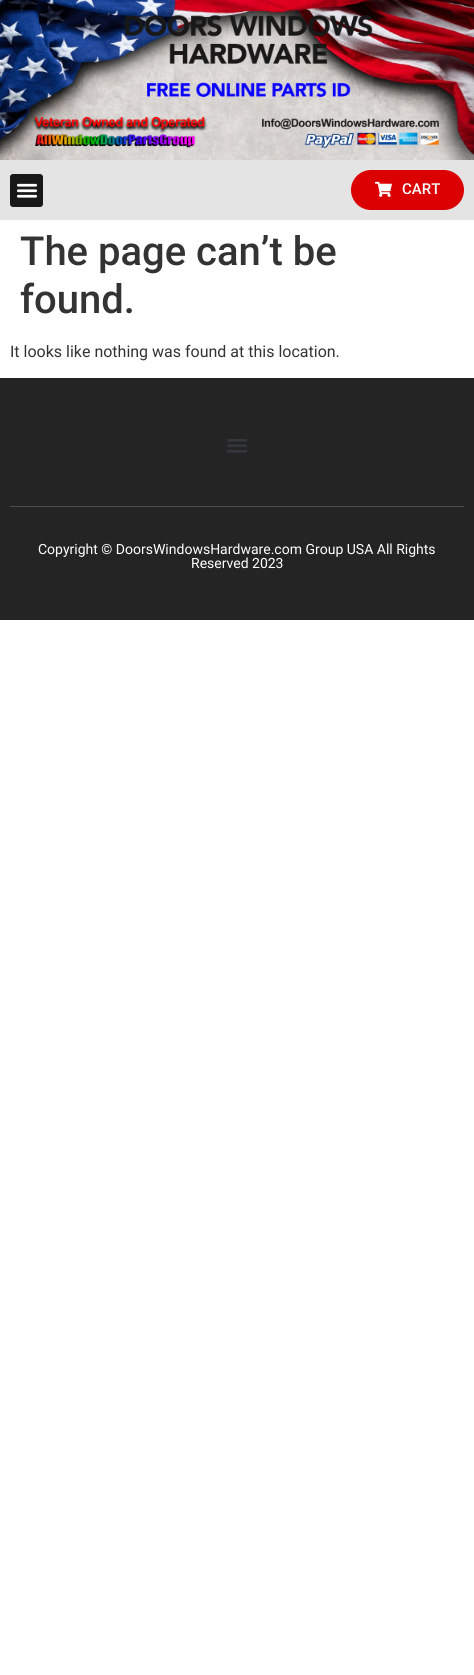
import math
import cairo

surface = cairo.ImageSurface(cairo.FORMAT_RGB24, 474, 1675)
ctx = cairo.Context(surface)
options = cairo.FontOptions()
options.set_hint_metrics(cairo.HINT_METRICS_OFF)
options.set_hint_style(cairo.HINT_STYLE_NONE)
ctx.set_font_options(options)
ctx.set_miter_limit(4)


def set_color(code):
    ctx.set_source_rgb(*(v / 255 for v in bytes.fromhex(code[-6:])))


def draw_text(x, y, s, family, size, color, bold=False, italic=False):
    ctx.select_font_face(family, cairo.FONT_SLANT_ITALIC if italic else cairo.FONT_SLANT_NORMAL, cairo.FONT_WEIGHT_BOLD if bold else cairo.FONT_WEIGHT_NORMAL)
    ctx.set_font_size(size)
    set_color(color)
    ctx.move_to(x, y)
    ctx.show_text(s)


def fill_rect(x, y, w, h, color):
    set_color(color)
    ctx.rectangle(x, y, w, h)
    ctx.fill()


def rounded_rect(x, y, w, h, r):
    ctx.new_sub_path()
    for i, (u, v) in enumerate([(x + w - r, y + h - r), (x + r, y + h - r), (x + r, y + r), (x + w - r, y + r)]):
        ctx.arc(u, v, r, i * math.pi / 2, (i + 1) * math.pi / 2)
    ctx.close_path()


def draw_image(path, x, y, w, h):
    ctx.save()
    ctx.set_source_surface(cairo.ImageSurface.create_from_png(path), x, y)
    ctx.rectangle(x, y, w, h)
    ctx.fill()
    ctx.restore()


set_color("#ffffff")
ctx.paint()
draw_image("assets/img1.png", 0, 0, 474, 160)
draw_image("assets/img2.png", 33, 14, 406, 134)
fill_rect(0, 160, 474, 60, "#e4e4e4")
set_color("#181818")
rounded_rect(10, 174, 33, 33, 3)
ctx.fill()
draw_image("assets/img3.png", 16, 183, 22, 15)
set_color("#db0001")
rounded_rect(351, 170, 113, 40, 20)
ctx.fill()
draw_image("assets/img4.png", 375, 181, 17, 16)
draw_text(402, 194, "CART", "Roboto Medium", 15, "#ffffff")
draw_text(20, 265, "The page can’t be", "Roboto Medium", 40, "#333333")
draw_text(20, 313, "found.", "Roboto Medium", 40, "#333333")
draw_text(10, 357, "It looks like nothing was found at this location.", "Roboto", 16, "#333333")
fill_rect(0, 378, 474, 242, "#242424")
draw_image("assets/img5.png", 227, 439, 20, 14)
fill_rect(10, 506, 454, 1, "#4b4b4b")
draw_text(38, 554, "Copyright © DoorsWindowsHardware.com Group USA All Rights", "Roboto", 14, "#ffffff")
draw_text(191, 568, "Reserved 2023", "Roboto", 14, "#ffffff")
surface.write_to_png("output.png")
